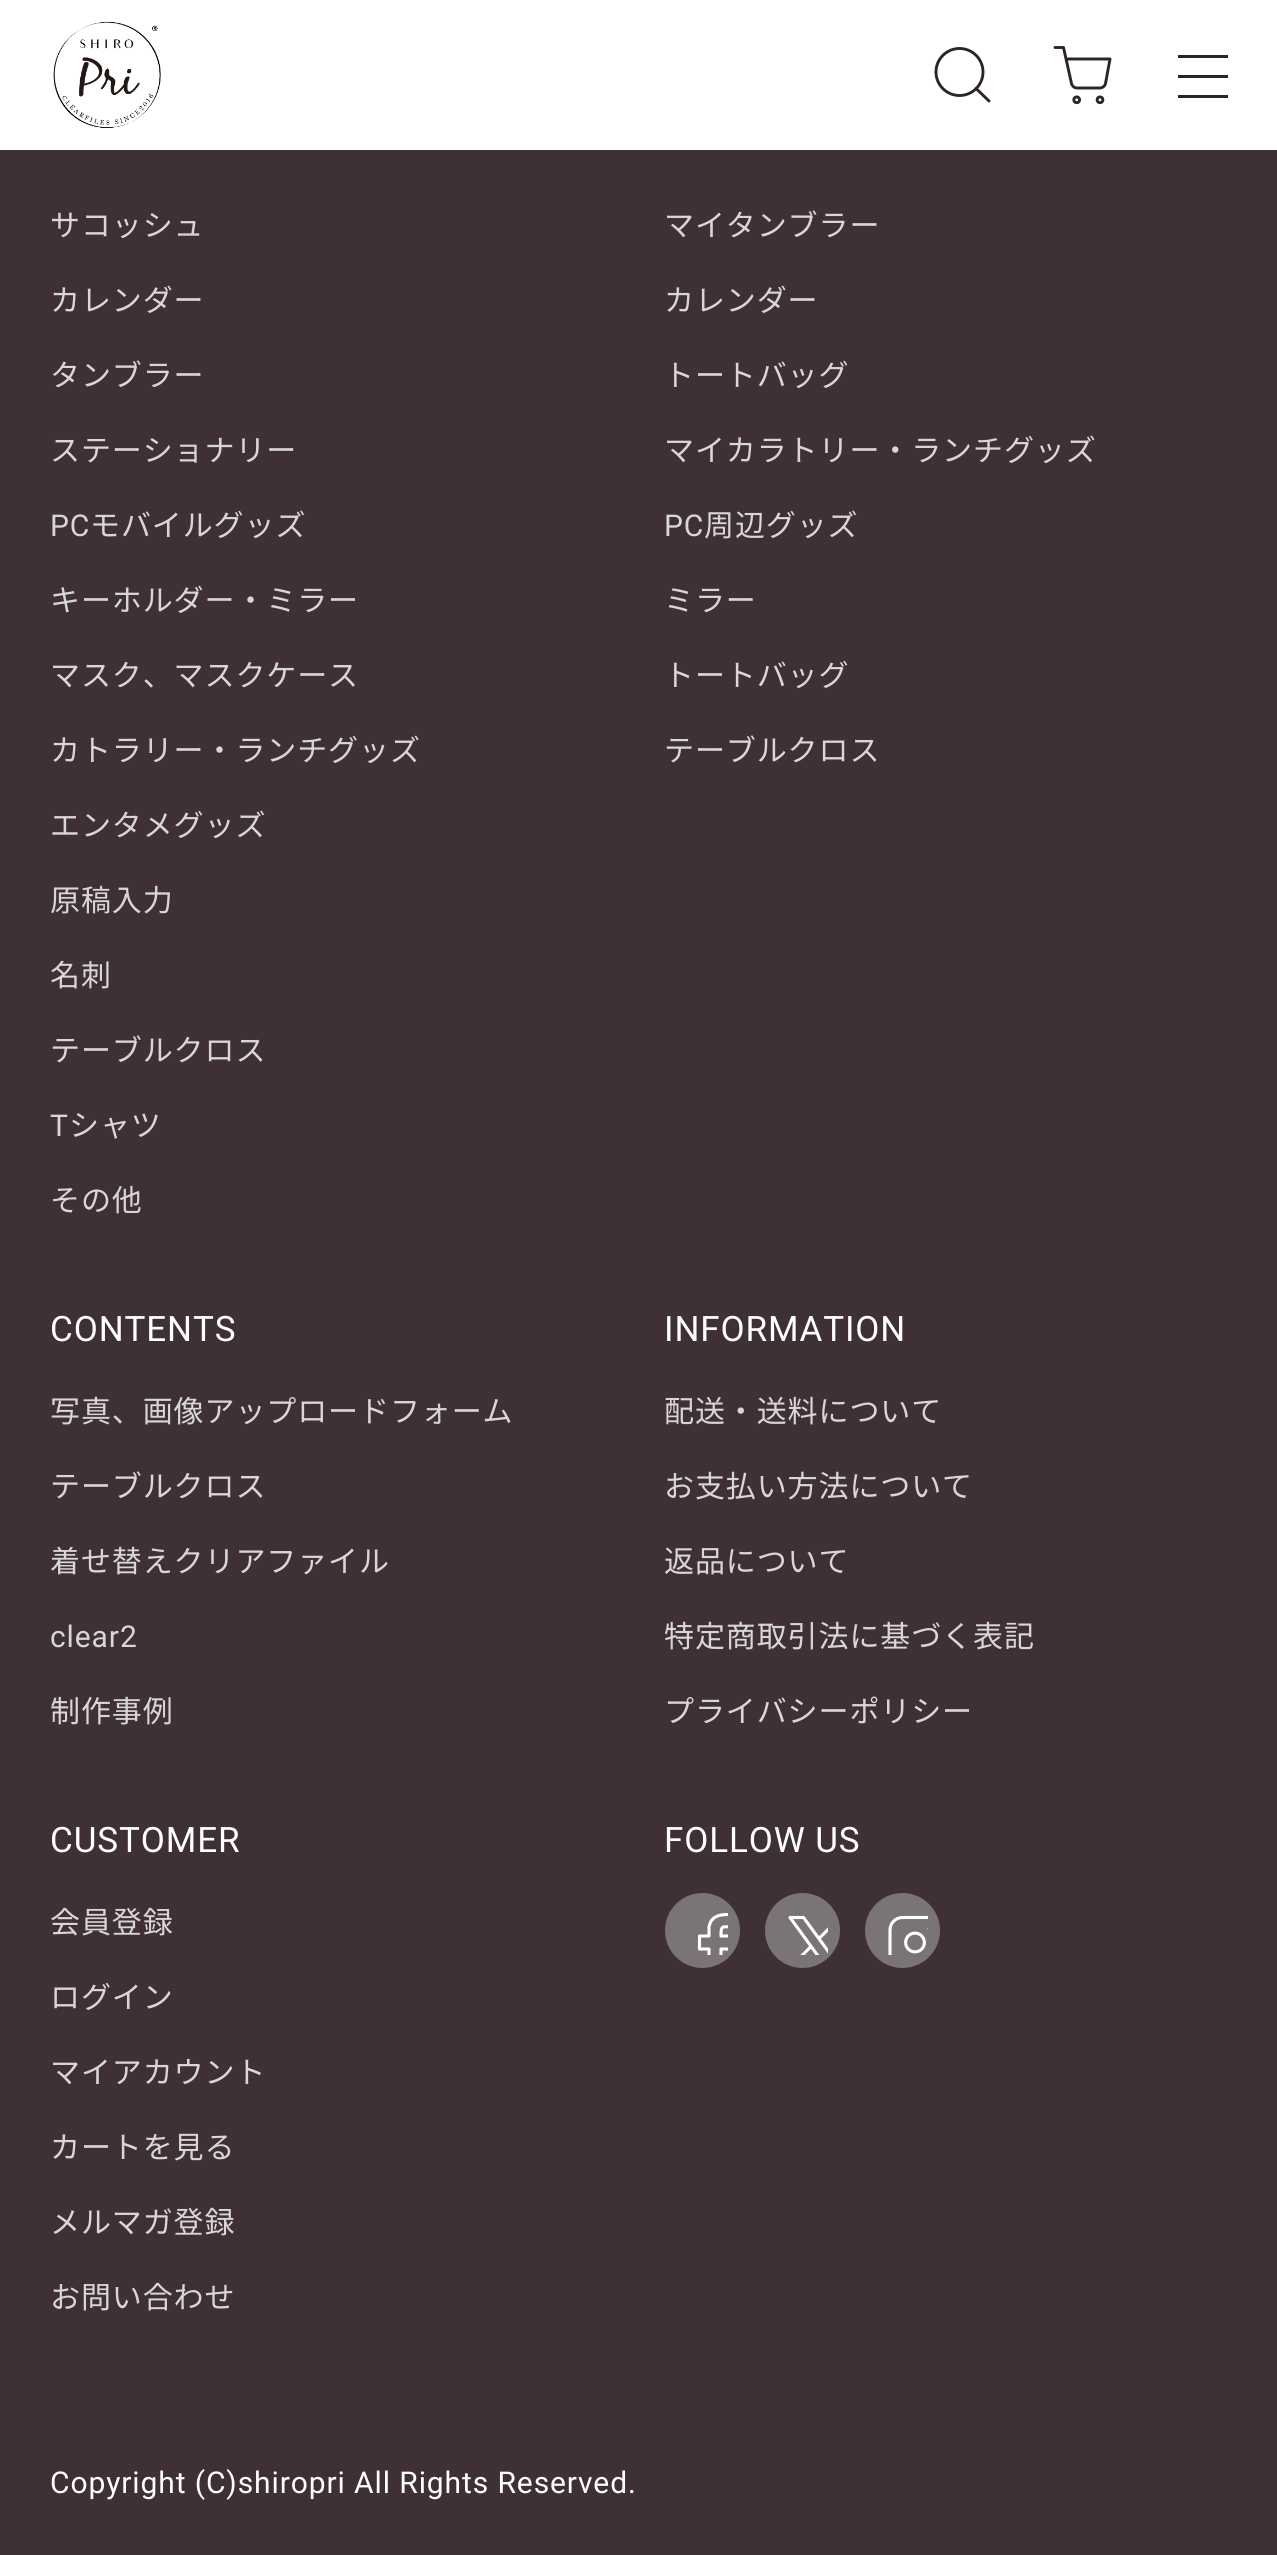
import math
import cairo

surface = cairo.ImageSurface(cairo.FORMAT_RGB24, 1277, 2555)
ctx = cairo.Context(surface)
options = cairo.FontOptions()
options.set_hint_metrics(cairo.HINT_METRICS_OFF)
options.set_hint_style(cairo.HINT_STYLE_NONE)
ctx.set_font_options(options)
ctx.set_miter_limit(4)


def set_color(code):
    ctx.set_source_rgb(*(v / 255 for v in bytes.fromhex(code[-6:])))


def draw_spaced(x, y, s, letter, word):
    ctx.move_to(x, y)
    for ch in s:
        ctx.show_text(ch)
        ctx.rel_move_to(letter + word * (ch == ' '), 0)


def fill_rect(x, y, w, h, color):
    set_color(color)
    ctx.rectangle(x, y, w, h)
    ctx.fill()


def draw_image(path, x, y, w, h):
    ctx.save()
    ctx.set_source_surface(cairo.ImageSurface.create_from_png(path), x, y)
    ctx.rectangle(x, y, w, h)
    ctx.fill()
    ctx.restore()


set_color("#3f3034")
ctx.paint()
fill_rect(0, 0, 1277, 150, "#ffffff")
draw_image("assets/img1.png", 53, 21, 108, 107)
ctx.arc(959.5, 72, 23.5, 0, 2 * math.pi)
set_color("#2f2424")
ctx.set_line_width(2.9)
ctx.stroke()
ctx.new_path()
ctx.move_to(989, 101)
ctx.line_to(976, 88.5)
ctx.set_line_cap(cairo.LINE_CAP_ROUND)
ctx.set_line_join(cairo.LINE_JOIN_ROUND)
ctx.stroke()
ctx.new_path()
ctx.move_to(1055, 47.5)
ctx.line_to(1063.5, 47.5)
ctx.line_to(1071.5, 83.5)
ctx.curve_to(1072, 86, 1074.5, 88, 1077, 88)
ctx.line_to(1099.5, 88)
ctx.curve_to(1102.5, 88, 1105, 86, 1105.5, 83.5)
ctx.line_to(1110, 59)
ctx.line_to(1068, 59)
ctx.stroke()
ctx.arc(1076.7, 99.8, 2.9, 0, 2 * math.pi)
ctx.set_line_cap(cairo.LINE_CAP_BUTT)
ctx.set_line_join(cairo.LINE_JOIN_MITER)
ctx.stroke()
ctx.arc(1100, 99.8, 2.9, 0, 2 * math.pi)
ctx.stroke()
fill_rect(1178, 55, 50, 3, "#2f2424")
fill_rect(1178, 75, 50, 3, "#2f2424")
fill_rect(1178, 95, 50, 3, "#2f2424")
ctx.select_font_face("Noto Sans JP")
ctx.set_font_size(30)
set_color("#d9d6d6")
draw_spaced(50, 236, "サコッシュ", 0.9, 0)
draw_spaced(50, 311, "カレンダー", 0.9, 0)
draw_spaced(50, 386, "タンブラー", 0.9, 0)
draw_spaced(50, 461, "ステーショナリー", 0.9, 0)
ctx.select_font_face("Roboto")
draw_spaced(50, 536, "PC", 0.9, 0)
ctx.select_font_face("Noto Sans JP")
draw_spaced(90, 536, "モバイルグッズ", 0.9, 0)
draw_spaced(50, 611, "キーホルダー・ミラー", 0.9, 0)
draw_spaced(50, 686, "マスク、マスクケース", 0.9, 0)
draw_spaced(50, 761, "カトラリー・ランチグッズ", 0.9, 0)
draw_spaced(50, 836, "エンタメグッズ", 0.9, 0)
draw_spaced(50, 911, "原稿入力", 0.9, 0)
draw_spaced(50, 986, "名刺", 0.9, 0)
draw_spaced(50, 1061, "テーブルクロス", 0.9, 0)
ctx.select_font_face("Roboto")
draw_spaced(50, 1136, "T", 0.9, 0)
ctx.select_font_face("Noto Sans JP")
draw_spaced(69, 1136, "シャツ", 0.9, 0)
draw_spaced(50, 1211, "その他", 0.9, 0)
draw_spaced(664, 236, "マイタンブラー", 0.9, 0)
draw_spaced(664, 311, "カレンダー", 0.9, 0)
draw_spaced(664, 386, "トートバッグ", 0.9, 0)
draw_spaced(664, 461, "マイカラトリー・ランチグッズ", 0.9, 0)
ctx.select_font_face("Roboto")
draw_spaced(664, 536, "PC", 0.9, 0)
ctx.select_font_face("Noto Sans JP")
draw_spaced(704, 536, "周辺グッズ", 0.9, 0)
draw_spaced(664, 611, "ミラー", 0.9, 0)
draw_spaced(664, 686, "トートバッグ", 0.9, 0)
draw_spaced(664, 761, "テーブルクロス", 0.9, 0)
ctx.select_font_face("Roboto")
ctx.set_font_size(35)
set_color("#ffffff")
draw_spaced(50, 1341, "CONTENTS", 0.9, 0)
ctx.select_font_face("Noto Sans JP")
ctx.set_font_size(30)
set_color("#d9d6d6")
draw_spaced(50, 1422, "写真、画像アップロードフォーム", 0.9, 0)
draw_spaced(50, 1497, "テーブルクロス", 0.9, 0)
draw_spaced(50, 1572, "着せ替えクリアファイル", 0.9, 0)
ctx.select_font_face("Roboto")
draw_spaced(50, 1647, "clear2", 0.9, 0)
ctx.select_font_face("Noto Sans JP")
draw_spaced(50, 1722, "制作事例", 0.9, 0)
ctx.select_font_face("Roboto")
ctx.set_font_size(35)
set_color("#ffffff")
draw_spaced(664, 1341, "INFORMATION", 0.9, 0)
ctx.select_font_face("Noto Sans JP")
ctx.set_font_size(30)
set_color("#d9d6d6")
draw_spaced(664, 1422, "配送・送料について", 0.9, 0)
draw_spaced(664, 1497, "お支払い方法について", 0.9, 0)
draw_spaced(664, 1572, "返品について", 0.9, 0)
ctx.save()
ctx.rectangle(665, 1600, 563, 75)
ctx.clip()
draw_spaced(664, 1647, "特定商取引法に基づく表記", 0.9, 0)
ctx.restore()
draw_spaced(664, 1722, "プライバシーポリシー", 0.9, 0)
ctx.select_font_face("Roboto")
ctx.set_font_size(35)
set_color("#ffffff")
draw_spaced(50, 1852, "CUSTOMER", 0.9, 0)
ctx.select_font_face("Noto Sans JP")
ctx.set_font_size(30)
set_color("#d9d6d6")
draw_spaced(50, 1933, "会員登録", 0.9, 0)
draw_spaced(50, 2008, "ログイン", 0.9, 0)
draw_spaced(50, 2083, "マイアカウント", 0.9, 0)
draw_spaced(50, 2158, "カートを見る", 0.9, 0)
draw_spaced(50, 2233, "メルマガ登録", 0.9, 0)
draw_spaced(50, 2308, "お問い合わせ", 0.9, 0)
ctx.select_font_face("Roboto")
ctx.set_font_size(35)
set_color("#ffffff")
draw_spaced(664, 1852, "FOLLOW US", 0.9, 0)
set_color("#7a7474")
ctx.new_path()
ctx.arc(702.5, 1930.5, 37.5, 0, 2 * math.pi)
ctx.fill()
ctx.save()
ctx.rectangle(678, 1905, 50, 50)
ctx.clip()
ctx.new_path()
ctx.move_to(699.5, 1936)
ctx.line_to(699.5, 1949)
ctx.line_to(709, 1949)
ctx.line_to(709, 1970.5)
ctx.line_to(721, 1970.5)
ctx.line_to(721, 1949)
ctx.line_to(730.5, 1949)
ctx.line_to(734, 1936)
ctx.line_to(721, 1936)
ctx.curve_to(721, 1924.5, 722, 1927, 734, 1927)
ctx.line_to(734, 1914.5)
ctx.curve_to(723.5, 1914.5, 711.5, 1913.5, 709, 1927)
ctx.line_to(709, 1936)
ctx.line_to(699.5, 1936)
set_color("#ffffff")
ctx.set_line_width(3.1)
ctx.set_line_cap(cairo.LINE_CAP_ROUND)
ctx.set_line_join(cairo.LINE_JOIN_ROUND)
ctx.stroke()
ctx.restore()
ctx.arc(802.5, 1930.5, 37.5, 0, 2 * math.pi)
ctx.fill()
ctx.save()
ctx.rectangle(778, 1905, 50, 50)
ctx.clip()
ctx.new_path()
ctx.move_to(790, 1917.5)
ctx.line_to(826.5, 1967.5)
ctx.line_to(840, 1967.5)
ctx.line_to(803.5, 1917.5)
ctx.close_path()
ctx.move_to(790, 1967.5)
ctx.line_to(811, 1946.5)
ctx.move_to(819, 1938.5)
ctx.line_to(840, 1917.5)
set_color("#ffffff")
ctx.set_line_width(3.1)
ctx.set_line_cap(cairo.LINE_CAP_ROUND)
ctx.set_line_join(cairo.LINE_JOIN_ROUND)
ctx.stroke()
ctx.restore()
ctx.arc(902.5, 1930.5, 37.5, 0, 2 * math.pi)
ctx.fill()
draw_image("assets/img2.png", 888, 1915, 40, 40)
ctx.set_font_size(30)
set_color("#ffffff")
draw_spaced(50, 2493, "Copyright (C)shiropri All Rights Reserved.", 0.9, 0)
surface.write_to_png("output.png")
